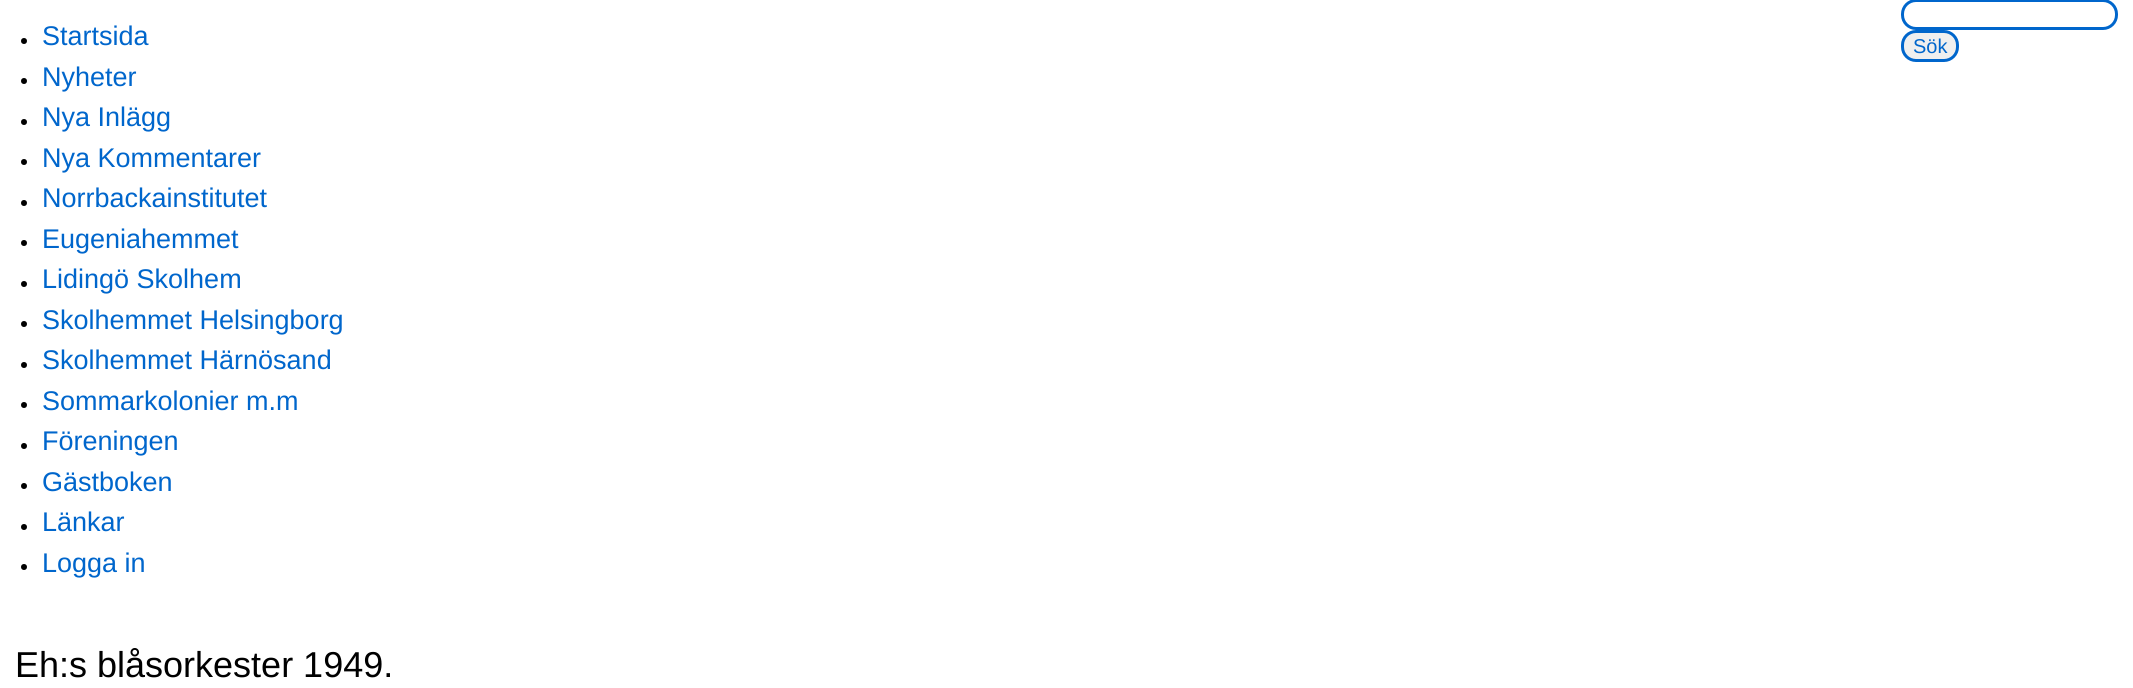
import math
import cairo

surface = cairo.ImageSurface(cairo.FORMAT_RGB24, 2133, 688)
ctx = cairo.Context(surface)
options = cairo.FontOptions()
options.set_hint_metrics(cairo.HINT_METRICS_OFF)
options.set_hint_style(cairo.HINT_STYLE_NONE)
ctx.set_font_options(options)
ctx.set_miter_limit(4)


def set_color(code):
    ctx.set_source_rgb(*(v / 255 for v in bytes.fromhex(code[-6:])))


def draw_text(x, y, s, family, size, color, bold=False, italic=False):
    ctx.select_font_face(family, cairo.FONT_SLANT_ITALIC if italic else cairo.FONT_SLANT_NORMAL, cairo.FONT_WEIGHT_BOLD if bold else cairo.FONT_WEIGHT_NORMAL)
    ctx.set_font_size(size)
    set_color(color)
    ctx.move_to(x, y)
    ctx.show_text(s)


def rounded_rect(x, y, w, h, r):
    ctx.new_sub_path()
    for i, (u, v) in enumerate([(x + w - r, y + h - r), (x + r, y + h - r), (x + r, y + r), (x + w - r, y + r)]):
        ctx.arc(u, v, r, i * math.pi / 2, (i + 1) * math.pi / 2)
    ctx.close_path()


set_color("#ffffff")
ctx.paint()
set_color("#000000")
ctx.arc(24, 41, 3, 0, 2 * math.pi)
ctx.fill()
draw_text(42, 45, "Startsida", "Liberation Sans", 27, "#0066cc")
set_color("#000000")
ctx.new_path()
ctx.arc(24, 81, 3, 0, 2 * math.pi)
ctx.fill()
draw_text(42, 86, "Nyheter", "Liberation Sans", 27, "#0066cc")
set_color("#000000")
ctx.new_path()
ctx.arc(24, 122, 3, 0, 2 * math.pi)
ctx.fill()
draw_text(42, 126, "Nya Inlägg", "Liberation Sans", 27, "#0066cc")
set_color("#000000")
ctx.new_path()
ctx.arc(24, 162, 3, 0, 2 * math.pi)
ctx.fill()
draw_text(42, 167, "Nya Kommentarer", "Liberation Sans", 27, "#0066cc")
set_color("#000000")
ctx.new_path()
ctx.arc(24, 203, 3, 0, 2 * math.pi)
ctx.fill()
draw_text(42, 207, "Norrbackainstitutet", "Liberation Sans", 27, "#0066cc")
set_color("#000000")
ctx.new_path()
ctx.arc(24, 243, 3, 0, 2 * math.pi)
ctx.fill()
draw_text(42, 248, "Eugeniahemmet", "Liberation Sans", 27, "#0066cc")
set_color("#000000")
ctx.new_path()
ctx.arc(24, 284, 3, 0, 2 * math.pi)
ctx.fill()
draw_text(42, 288, "Lidingö Skolhem", "Liberation Sans", 27, "#0066cc")
set_color("#000000")
ctx.new_path()
ctx.arc(24, 324, 3, 0, 2 * math.pi)
ctx.fill()
draw_text(42, 329, "Skolhemmet Helsingborg", "Liberation Sans", 27, "#0066cc")
set_color("#000000")
ctx.new_path()
ctx.arc(24, 365, 3, 0, 2 * math.pi)
ctx.fill()
draw_text(42, 369, "Skolhemmet Härnösand", "Liberation Sans", 27, "#0066cc")
set_color("#000000")
ctx.new_path()
ctx.arc(24, 405, 3, 0, 2 * math.pi)
ctx.fill()
draw_text(42, 410, "Sommarkolonier m.m", "Liberation Sans", 27, "#0066cc")
set_color("#000000")
ctx.new_path()
ctx.arc(24, 446, 3, 0, 2 * math.pi)
ctx.fill()
draw_text(42, 450, "Föreningen", "Liberation Sans", 27, "#0066cc")
set_color("#000000")
ctx.new_path()
ctx.arc(24, 486, 3, 0, 2 * math.pi)
ctx.fill()
draw_text(42, 491, "Gästboken", "Liberation Sans", 27, "#0066cc")
set_color("#000000")
ctx.new_path()
ctx.arc(24, 527, 3, 0, 2 * math.pi)
ctx.fill()
draw_text(42, 531, "Länkar", "Liberation Sans", 27, "#0066cc")
set_color("#000000")
ctx.new_path()
ctx.arc(24, 567, 3, 0, 2 * math.pi)
ctx.fill()
draw_text(42, 572, "Logga in", "Liberation Sans", 27, "#0066cc")
rounded_rect(1902.5, 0.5, 214, 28, 13.5)
ctx.set_line_width(3)
ctx.stroke()
set_color("#efefef")
rounded_rect(1902.5, 31.5, 55, 29, 13.5)
ctx.fill_preserve()
set_color("#0066cc")
ctx.stroke()
draw_text(1913, 53, "Sök", "Liberation Sans", 20, "#0066cc")
draw_text(15, 677, "Eh:s blåsorkester 1949.", "Liberation Sans", 36, "#000000")
surface.write_to_png("output.png")
